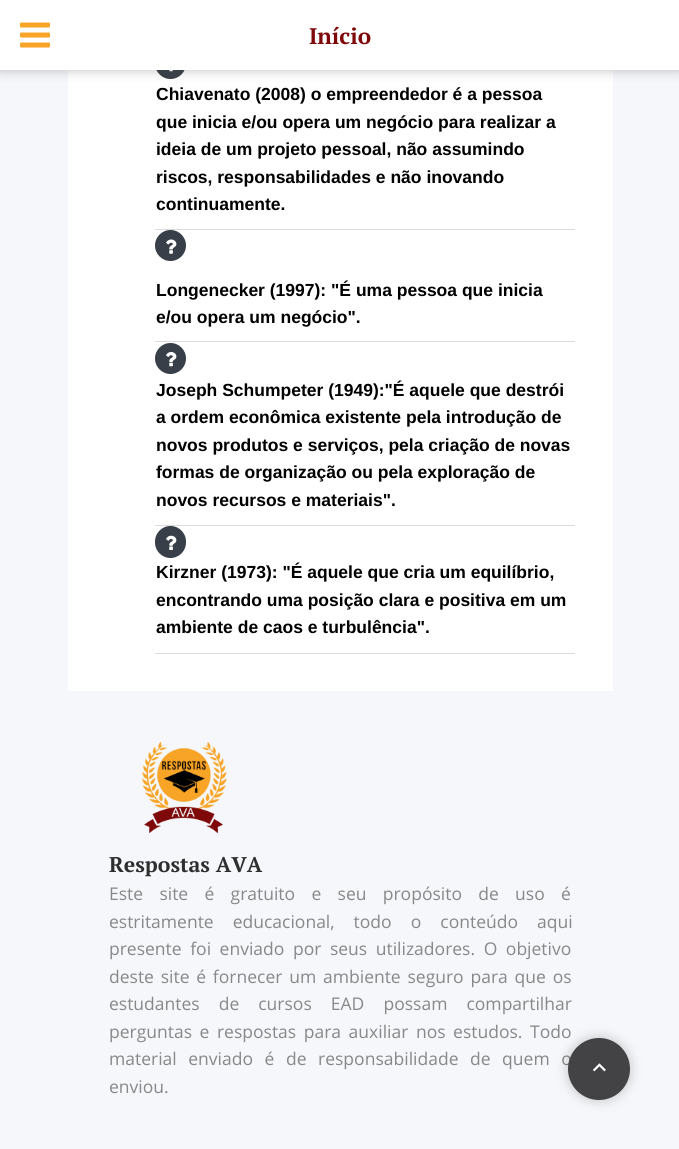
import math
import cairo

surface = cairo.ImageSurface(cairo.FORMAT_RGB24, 679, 1149)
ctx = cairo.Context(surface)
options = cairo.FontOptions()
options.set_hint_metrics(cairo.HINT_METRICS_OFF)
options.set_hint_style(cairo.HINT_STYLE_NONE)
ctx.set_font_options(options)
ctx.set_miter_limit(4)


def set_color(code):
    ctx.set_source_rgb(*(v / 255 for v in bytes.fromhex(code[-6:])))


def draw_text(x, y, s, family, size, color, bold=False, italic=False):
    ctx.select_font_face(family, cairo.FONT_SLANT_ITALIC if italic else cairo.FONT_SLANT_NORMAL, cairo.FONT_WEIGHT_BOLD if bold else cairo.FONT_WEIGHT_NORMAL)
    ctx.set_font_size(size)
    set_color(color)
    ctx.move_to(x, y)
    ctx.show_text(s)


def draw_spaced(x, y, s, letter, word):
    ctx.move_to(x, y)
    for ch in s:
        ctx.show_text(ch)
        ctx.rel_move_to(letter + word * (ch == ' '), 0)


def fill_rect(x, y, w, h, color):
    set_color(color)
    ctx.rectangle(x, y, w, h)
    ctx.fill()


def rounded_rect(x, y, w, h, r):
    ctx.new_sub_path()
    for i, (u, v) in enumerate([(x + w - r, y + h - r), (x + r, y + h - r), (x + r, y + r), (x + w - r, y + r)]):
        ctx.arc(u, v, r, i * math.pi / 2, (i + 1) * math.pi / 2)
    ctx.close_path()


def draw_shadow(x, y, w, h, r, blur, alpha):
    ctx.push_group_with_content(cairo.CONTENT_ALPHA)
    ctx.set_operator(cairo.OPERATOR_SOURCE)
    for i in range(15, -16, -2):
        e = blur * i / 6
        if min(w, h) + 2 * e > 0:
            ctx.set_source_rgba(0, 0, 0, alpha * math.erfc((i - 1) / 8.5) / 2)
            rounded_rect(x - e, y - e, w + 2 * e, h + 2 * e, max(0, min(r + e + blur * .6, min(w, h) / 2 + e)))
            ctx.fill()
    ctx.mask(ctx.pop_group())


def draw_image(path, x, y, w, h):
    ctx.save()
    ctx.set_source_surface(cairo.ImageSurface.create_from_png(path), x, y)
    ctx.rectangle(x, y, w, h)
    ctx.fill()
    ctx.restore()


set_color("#f5f7fa")
ctx.paint()
fill_rect(68, 70, 545, 621, "#ffffff")
set_color("#383f48")
ctx.arc(170.5, 63.5, 15.5, 0, 2 * math.pi)
ctx.fill()
draw_image("assets/img2.png", 169, 70, 4, 2)
set_color("#434345")
draw_shadow(0, 0, 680, 70, 0, 6, 0.35)
fill_rect(0, 0, 679, 70, "#ffffff")
draw_image("assets/img1.png", 20, 22, 30, 26)
draw_text(309, 44, "Início", "PT Serif", 22.5, "#7f0909", bold=True)
fill_rect(155, 229, 420, 1, "#dbdbdb")
draw_text(156, 100, "Chiavenato (2008) o empreendedor é a pessoa", "Liberation Sans", 17.5, "#000000", bold=True)
draw_text(156, 128, "que inicia e/ou opera um negócio para realizar a", "Liberation Sans", 17.5, "#000000", bold=True)
draw_text(156, 155, "ideia de um projeto pessoal, não assumindo", "Liberation Sans", 17.5, "#000000", bold=True)
draw_text(156, 183, "riscos, responsabilidades e não inovando", "Liberation Sans", 17.5, "#000000", bold=True)
draw_text(156, 210, "continuamente.", "Liberation Sans", 17.5, "#000000", bold=True)
fill_rect(155, 341, 420, 1, "#dbdbdb")
set_color("#383f48")
ctx.new_path()
ctx.arc(170.5, 245.5, 15.5, 0, 2 * math.pi)
ctx.fill()
draw_image("assets/img3.png", 166, 239, 11, 15)
draw_text(156, 296, "Longenecker (1997): \"É uma pessoa que inicia", "Liberation Sans", 17.5, "#000000", bold=True)
draw_text(156, 323, "e/ou opera um negócio\".", "Liberation Sans", 17.5, "#000000", bold=True)
fill_rect(155, 525, 420, 1, "#dbdbdb")
set_color("#383f48")
ctx.new_path()
ctx.arc(170.5, 358.5, 15.5, 0, 2 * math.pi)
ctx.fill()
draw_image("assets/img4.png", 166, 352, 11, 15)
draw_text(156, 396, "Joseph Schumpeter (1949):\"É aquele que destrói", "Liberation Sans", 17.5, "#000000", bold=True)
draw_text(156, 423, "a ordem econômica existente pela introdução de", "Liberation Sans", 17.5, "#000000", bold=True)
draw_text(156, 451, "novos produtos e serviços, pela criação de novas", "Liberation Sans", 17.5, "#000000", bold=True)
draw_text(156, 478, "formas de organização ou pela exploração de", "Liberation Sans", 17.5, "#000000", bold=True)
draw_text(156, 506, "novos recursos e materiais\".", "Liberation Sans", 17.5, "#000000", bold=True)
fill_rect(155, 653, 420, 1, "#dbdbdb")
set_color("#383f48")
rounded_rect(155, 526, 31, 32, 15.5)
ctx.fill()
draw_image("assets/img5.png", 166, 535, 11, 15)
draw_text(156, 578, "Kirzner (1973): \"É aquele que cria um equilíbrio,", "Liberation Sans", 17.5, "#000000", bold=True)
draw_text(156, 606, "encontrando uma posição clara e positiva em um", "Liberation Sans", 17.5, "#000000", bold=True)
draw_text(156, 633, "ambiente de caos e turbulência\".", "Liberation Sans", 17.5, "#000000", bold=True)
draw_image("assets/img6.png", 142, 741, 85, 92)
draw_text(109, 872, "Respostas AVA", "PT Serif", 21.25, "#2d2e2e", bold=True)
ctx.select_font_face("Open Sans")
ctx.set_font_size(17.5)
set_color("#888888")
draw_spaced(109, 900, "Este site é gratuito e seu propósito de uso é", 0, 11.75)
draw_spaced(109, 928, "estritamente educacional, todo o conteúdo aqui", 0, 14.5)
draw_spaced(109, 955, "presente foi enviado por seus utilizadores. O objetivo", 0, 4)
draw_spaced(109, 983, "deste site é fornecer um ambiente seguro para que os", 0, 2.25)
draw_spaced(109, 1010, "estudantes de cursos EAD possam compartilhar", 0, 14.5)
draw_spaced(109, 1038, "perguntas e respostas para auxiliar nos estudos. Todo", 0, 3)
draw_spaced(109, 1065, "material enviado é de responsabilidade de quem o", 0, 7)
draw_text(109, 1093, "enviou.", "Open Sans", 17.5, "#888888")
set_color("#000000")
draw_shadow(568, 1038, 62, 62, 31, 6, 0.22)
set_color("#434345")
ctx.arc(599, 1069, 31, 0, 2 * math.pi)
ctx.fill()
draw_image("assets/img7.png", 592, 1063, 14, 9)
surface.write_to_png("output.png")
